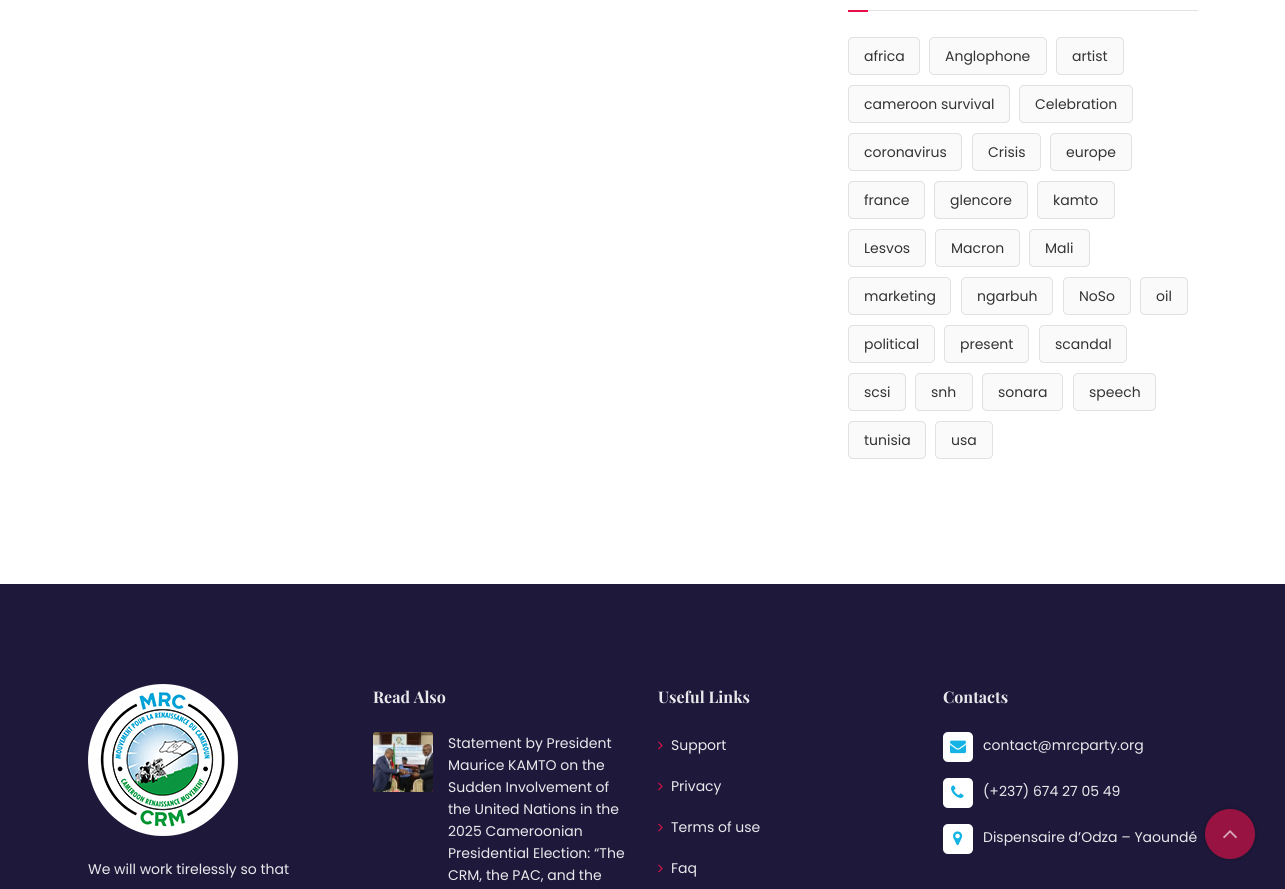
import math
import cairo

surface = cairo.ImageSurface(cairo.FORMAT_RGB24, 1285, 889)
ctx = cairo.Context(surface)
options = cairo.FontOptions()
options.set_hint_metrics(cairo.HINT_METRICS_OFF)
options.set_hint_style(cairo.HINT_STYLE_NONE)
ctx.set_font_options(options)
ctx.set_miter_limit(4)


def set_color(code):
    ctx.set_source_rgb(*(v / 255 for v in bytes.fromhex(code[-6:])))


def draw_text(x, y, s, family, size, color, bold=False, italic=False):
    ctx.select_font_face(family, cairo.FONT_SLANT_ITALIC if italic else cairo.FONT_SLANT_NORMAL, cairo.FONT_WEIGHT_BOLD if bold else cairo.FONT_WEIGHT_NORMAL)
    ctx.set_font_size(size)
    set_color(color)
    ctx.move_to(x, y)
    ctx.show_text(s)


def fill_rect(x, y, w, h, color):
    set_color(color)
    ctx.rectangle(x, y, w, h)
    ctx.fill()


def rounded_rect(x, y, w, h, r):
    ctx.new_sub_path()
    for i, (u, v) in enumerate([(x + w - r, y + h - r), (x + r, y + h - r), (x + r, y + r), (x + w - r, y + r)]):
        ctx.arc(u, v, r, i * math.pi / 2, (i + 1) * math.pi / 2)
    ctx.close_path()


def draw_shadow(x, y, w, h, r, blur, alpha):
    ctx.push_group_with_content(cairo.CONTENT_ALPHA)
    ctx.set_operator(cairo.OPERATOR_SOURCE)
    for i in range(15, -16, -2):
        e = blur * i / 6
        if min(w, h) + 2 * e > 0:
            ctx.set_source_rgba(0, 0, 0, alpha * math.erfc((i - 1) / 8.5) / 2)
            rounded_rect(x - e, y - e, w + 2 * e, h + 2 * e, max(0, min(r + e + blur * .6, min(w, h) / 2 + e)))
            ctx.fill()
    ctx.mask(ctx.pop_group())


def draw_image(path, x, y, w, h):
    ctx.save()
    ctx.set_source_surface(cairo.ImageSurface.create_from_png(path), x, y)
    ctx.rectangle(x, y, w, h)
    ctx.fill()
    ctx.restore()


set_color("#ffffff")
ctx.paint()
fill_rect(848, 10, 20, 2, "#e70f47")
fill_rect(868, 10, 330, 1, "#e3e3e3")
set_color("#fafafa")
rounded_rect(848.5, 37.5, 71, 37, 4.5)
ctx.fill_preserve()
set_color("#e1e1e1")
ctx.set_line_width(1)
ctx.stroke()
draw_text(864, 61, "africa", "Poppins", 14, "#333333")
set_color("#fafafa")
rounded_rect(929.5, 37.5, 117, 37, 4.5)
ctx.fill_preserve()
set_color("#e1e1e1")
ctx.stroke()
draw_text(945, 61, "Anglophone", "Poppins", 14, "#333333")
set_color("#fafafa")
rounded_rect(1056.5, 37.5, 67, 37, 4.5)
ctx.fill_preserve()
set_color("#e1e1e1")
ctx.stroke()
draw_text(1072, 61, "artist", "Poppins", 14, "#333333")
set_color("#fafafa")
rounded_rect(848.5, 85.5, 161, 37, 4.5)
ctx.fill_preserve()
set_color("#e1e1e1")
ctx.stroke()
draw_text(864, 109, "cameroon survival", "Poppins", 14, "#333333")
set_color("#fafafa")
rounded_rect(1019.5, 85.5, 113, 37, 4.5)
ctx.fill_preserve()
set_color("#e1e1e1")
ctx.stroke()
draw_text(1035, 109, "Celebration", "Poppins", 14, "#333333")
set_color("#fafafa")
rounded_rect(848.5, 133.5, 113, 37, 4.5)
ctx.fill_preserve()
set_color("#e1e1e1")
ctx.stroke()
draw_text(864, 157, "coronavirus", "Poppins", 14, "#333333")
set_color("#fafafa")
rounded_rect(972.5, 133.5, 68, 37, 4.5)
ctx.fill_preserve()
set_color("#e1e1e1")
ctx.stroke()
draw_text(988, 157, "Crisis", "Poppins", 14, "#333333")
set_color("#fafafa")
rounded_rect(1050.5, 133.5, 81, 37, 4.5)
ctx.fill_preserve()
set_color("#e1e1e1")
ctx.stroke()
draw_text(1066, 157, "europe", "Poppins", 14, "#333333")
set_color("#fafafa")
rounded_rect(848.5, 181.5, 76, 37, 4.5)
ctx.fill_preserve()
set_color("#e1e1e1")
ctx.stroke()
draw_text(864, 205, "france", "Poppins", 14, "#333333")
set_color("#fafafa")
rounded_rect(934.5, 181.5, 93, 37, 4.5)
ctx.fill_preserve()
set_color("#e1e1e1")
ctx.stroke()
draw_text(950, 205, "glencore", "Poppins", 14, "#333333")
set_color("#fafafa")
rounded_rect(1037.5, 181.5, 77, 37, 4.5)
ctx.fill_preserve()
set_color("#e1e1e1")
ctx.stroke()
draw_text(1053, 205, "kamto", "Poppins", 14, "#333333")
set_color("#fafafa")
rounded_rect(848.5, 229.5, 77, 37, 4.5)
ctx.fill_preserve()
set_color("#e1e1e1")
ctx.stroke()
draw_text(864, 253, "Lesvos", "Poppins", 14, "#333333")
set_color("#fafafa")
rounded_rect(935.5, 229.5, 84, 37, 4.5)
ctx.fill_preserve()
set_color("#e1e1e1")
ctx.stroke()
draw_text(951, 253, "Macron", "Poppins", 14, "#333333")
set_color("#fafafa")
rounded_rect(1029.5, 229.5, 60, 37, 4.5)
ctx.fill_preserve()
set_color("#e1e1e1")
ctx.stroke()
draw_text(1045, 253, "Mali", "Poppins", 14, "#333333")
set_color("#fafafa")
rounded_rect(848.5, 277.5, 102, 37, 4.5)
ctx.fill_preserve()
set_color("#e1e1e1")
ctx.stroke()
draw_text(864, 301, "marketing", "Poppins", 14, "#333333")
set_color("#fafafa")
rounded_rect(961.5, 277.5, 91, 37, 4.5)
ctx.fill_preserve()
set_color("#e1e1e1")
ctx.stroke()
draw_text(977, 301, "ngarbuh", "Poppins", 14, "#333333")
set_color("#fafafa")
rounded_rect(1063.5, 277.5, 67, 37, 4.5)
ctx.fill_preserve()
set_color("#e1e1e1")
ctx.stroke()
draw_text(1079, 301, "NoSo", "Poppins", 14, "#333333")
set_color("#fafafa")
rounded_rect(1140.5, 277.5, 47, 37, 4.5)
ctx.fill_preserve()
set_color("#e1e1e1")
ctx.stroke()
draw_text(1156, 301, "oil", "Poppins", 14, "#333333")
set_color("#fafafa")
rounded_rect(848.5, 325.5, 86, 37, 4.5)
ctx.fill_preserve()
set_color("#e1e1e1")
ctx.stroke()
draw_text(864, 349, "political", "Poppins", 14, "#333333")
set_color("#fafafa")
rounded_rect(944.5, 325.5, 84, 37, 4.5)
ctx.fill_preserve()
set_color("#e1e1e1")
ctx.stroke()
draw_text(960, 349, "present", "Poppins", 14, "#333333")
set_color("#fafafa")
rounded_rect(1039.5, 325.5, 87, 37, 4.5)
ctx.fill_preserve()
set_color("#e1e1e1")
ctx.stroke()
draw_text(1055, 349, "scandal", "Poppins", 14, "#333333")
set_color("#fafafa")
rounded_rect(848.5, 373.5, 57, 37, 4.5)
ctx.fill_preserve()
set_color("#e1e1e1")
ctx.stroke()
draw_text(864, 397, "scsi", "Poppins", 14, "#333333")
set_color("#fafafa")
rounded_rect(915.5, 373.5, 57, 37, 4.5)
ctx.fill_preserve()
set_color("#e1e1e1")
ctx.stroke()
draw_text(931, 397, "snh", "Poppins", 14, "#333333")
set_color("#fafafa")
rounded_rect(982.5, 373.5, 80, 37, 4.5)
ctx.fill_preserve()
set_color("#e1e1e1")
ctx.stroke()
draw_text(998, 397, "sonara", "Poppins", 14, "#333333")
set_color("#fafafa")
rounded_rect(1073.5, 373.5, 82, 37, 4.5)
ctx.fill_preserve()
set_color("#e1e1e1")
ctx.stroke()
draw_text(1089, 397, "speech", "Poppins", 14, "#333333")
set_color("#fafafa")
rounded_rect(848.5, 421.5, 77, 37, 4.5)
ctx.fill_preserve()
set_color("#e1e1e1")
ctx.stroke()
draw_text(864, 445, "tunisia", "Poppins", 14, "#333333")
set_color("#fafafa")
rounded_rect(935.5, 421.5, 57, 37, 4.5)
ctx.fill_preserve()
set_color("#e1e1e1")
ctx.stroke()
draw_text(951, 445, "usa", "Poppins", 14, "#333333")
fill_rect(0, 584, 1285, 305, "#1e193b")
draw_text(373, 703, "Read Also", "Playfair Display", 16, "#e9e8eb", bold=True)
draw_image("assets/img1.png", 373, 732, 60, 60)
draw_text(448, 748, "Statement by President", "Poppins", 14, "#e9e8eb")
draw_text(448, 770, "Maurice KAMTO on the", "Poppins", 14, "#e9e8eb")
draw_text(448, 792, "Sudden Involvement of", "Poppins", 14, "#e9e8eb")
draw_text(448, 814, "the United Nations in the", "Poppins", 14, "#e9e8eb")
draw_text(448, 836, "2025 Cameroonian", "Poppins", 14, "#e9e8eb")
draw_text(448, 858, "Presidential Election: “The", "Poppins", 14, "#e9e8eb")
draw_text(448, 880, "CRM, the PAC, and the", "Poppins", 14, "#e9e8eb")
draw_text(658, 703, "Useful Links", "Playfair Display", 16, "#e9e8eb", bold=True)
draw_image("assets/img2.png", 658, 741, 5, 9)
draw_text(671, 750, "Support", "Poppins", 14, "#e9e8eb")
draw_image("assets/img2.png", 658, 782, 5, 9)
draw_text(671, 791, "Privacy", "Poppins", 14, "#e9e8eb")
draw_image("assets/img2.png", 658, 823, 5, 9)
draw_text(671, 832, "Terms of use", "Poppins", 14, "#e9e8eb")
draw_image("assets/img2.png", 658, 864, 5, 9)
draw_text(671, 873, "Faq", "Poppins", 14, "#e9e8eb")
draw_text(943, 703, "Contacts", "Playfair Display", 16, "#e9e8eb", bold=True)
set_color("#ffffff")
rounded_rect(943, 732, 30, 30, 5)
ctx.fill()
draw_image("assets/img3.png", 950, 740, 16, 14)
draw_text(983, 750, "contact@mrcparty.org", "Poppins", 14, "#e9e8eb")
set_color("#ffffff")
rounded_rect(943, 778, 30, 30, 5)
ctx.fill()
draw_image("assets/img4.png", 951, 785, 13, 13)
draw_text(983, 796, "(+237) 674 27 05 49", "Poppins", 14, "#e9e8eb")
set_color("#ffffff")
rounded_rect(943, 824, 30, 30, 5)
ctx.fill()
draw_image("assets/img5.png", 953, 831, 10, 15)
draw_text(983, 842, "Dispensaire d’Odza – Yaoundé", "Poppins", 14, "#e9e8eb")
draw_image("assets/img6.png", 88, 684, 150, 152)
draw_text(88, 874, "We will work tirelessly so that", "Poppins", 14, "#e9e8eb")
set_color("#0c0a17")
draw_shadow(1205, 809, 50, 50, 25, 2.5, 0.5)
set_color("#981342")
ctx.arc(1230, 834, 25, 0, 2 * math.pi)
ctx.fill()
draw_image("assets/img7.png", 1223, 830, 14, 9)
surface.write_to_png("output.png")
